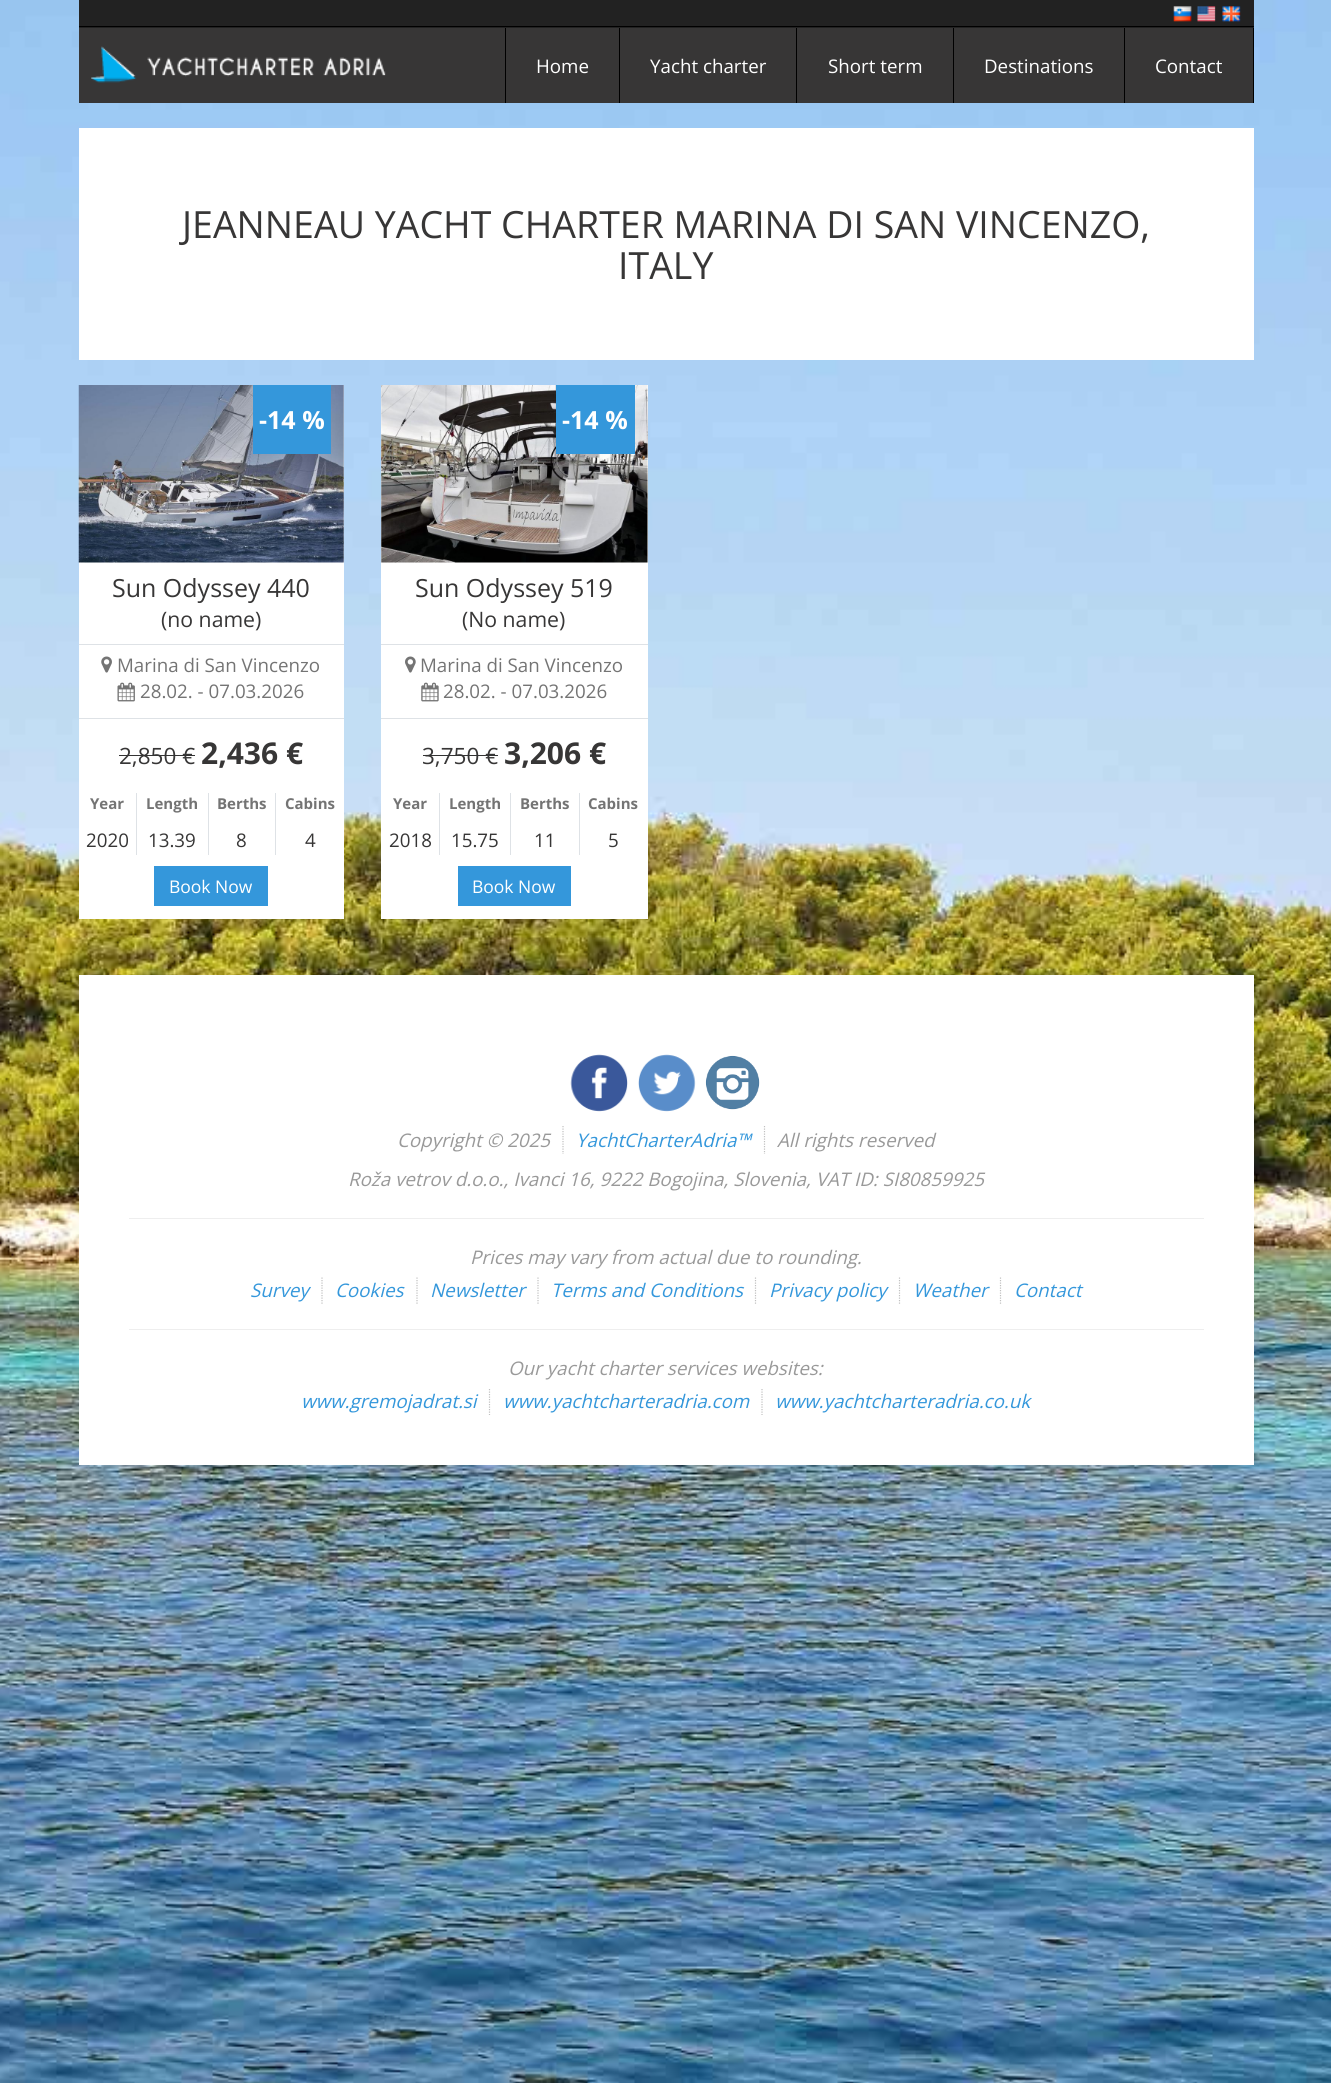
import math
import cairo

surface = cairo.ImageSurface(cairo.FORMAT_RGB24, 1331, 2083)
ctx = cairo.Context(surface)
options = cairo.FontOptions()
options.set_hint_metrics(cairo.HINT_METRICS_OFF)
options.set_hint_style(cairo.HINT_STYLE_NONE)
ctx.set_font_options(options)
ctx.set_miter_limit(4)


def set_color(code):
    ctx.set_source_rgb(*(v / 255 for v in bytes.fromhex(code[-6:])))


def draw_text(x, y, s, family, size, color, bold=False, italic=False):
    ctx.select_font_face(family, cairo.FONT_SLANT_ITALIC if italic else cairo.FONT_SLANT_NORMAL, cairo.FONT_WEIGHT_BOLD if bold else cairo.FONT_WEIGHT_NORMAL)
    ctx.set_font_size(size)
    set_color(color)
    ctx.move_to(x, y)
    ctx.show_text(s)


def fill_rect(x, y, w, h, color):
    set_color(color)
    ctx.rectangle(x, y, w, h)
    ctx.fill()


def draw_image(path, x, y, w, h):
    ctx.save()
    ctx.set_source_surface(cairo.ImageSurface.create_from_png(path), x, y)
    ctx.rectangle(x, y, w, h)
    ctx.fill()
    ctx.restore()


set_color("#ffffff")
ctx.paint()
draw_image("assets/img1.png", 0, 0, 1331, 2083)
fill_rect(79, 0, 1175, 28, "#222222")
fill_rect(79, 26, 1175, 1, "#000000")
draw_image("assets/img2.png", 1173, 6, 19, 16)
draw_image("assets/img3.png", 1197, 6, 19, 16)
draw_image("assets/img4.png", 1222, 6, 19, 16)
fill_rect(79, 28, 1174, 75, "#373636")
draw_image("assets/img5.png", 91, 46, 295, 37)
fill_rect(619, 28, 1, 75, "#000000")
fill_rect(505, 28, 1, 75, "#000000")
draw_text(536, 73, "Home", "Open Sans", 18.75, "#ffffff")
fill_rect(796, 28, 1, 75, "#000000")
draw_text(650, 73, "Yacht charter", "Open Sans", 18.75, "#ffffff")
fill_rect(953, 28, 1, 75, "#000000")
draw_text(828, 73, "Short term", "Open Sans", 18.75, "#ffffff")
fill_rect(1124, 28, 1, 75, "#000000")
draw_text(984, 73, "Destinations", "Open Sans", 18.75, "#ffffff")
fill_rect(1253, 28, 1, 75, "#000000")
draw_text(1155, 73, "Contact", "Open Sans", 18.75, "#ffffff")
fill_rect(79, 128, 1175, 232, "#ffffff")
draw_text(182, 238, "JEANNEAU YACHT CHARTER MARINA DI SAN VINCENZO,", "Open Sans", 37.5, "#373636")
draw_text(618, 279, "ITALY", "Open Sans", 37.5, "#373636")
fill_rect(79, 385, 265, 534, "#ffffff")
draw_image("assets/img6.png", 78, 385, 266, 178)
fill_rect(253, 385, 78, 69, "#3497db")
draw_text(259, 429, "-14 %", "Open Sans", 25, "#ffffff", bold=True)
draw_text(112, 597, "Sun Odyssey 440", "Open Sans", 25, "#373636")
draw_text(161, 627, "(no name)", "Open Sans", 21.25, "#373636")
fill_rect(79, 644, 265, 1, "#dee2e6")
draw_image("assets/img7.png", 101, 656, 11, 17)
draw_text(117, 672, "Marina di San Vincenzo", "Open Sans", 18.75, "#747474")
draw_image("assets/img8.png", 117, 682, 18, 20)
draw_text(140, 698, "28.02. - 07.03.2026", "Open Sans", 18.75, "#747474")
fill_rect(79, 718, 265, 1, "#dee2e6")
draw_text(119, 764, "2,850 €", "Open Sans", 22.5, "#373636")
fill_rect(119, 755, 76, 1, "#333333")
draw_text(201, 764, "2,436 €", "Open Sans", 30, "#373636", bold=True)
draw_text(90, 809, "Year", "Open Sans", 15, "#747474", bold=True)
draw_text(146, 809, "Length", "Open Sans", 15, "#747474", bold=True)
draw_text(217, 809, "Berths", "Open Sans", 15, "#747474", bold=True)
draw_text(285, 809, "Cabins", "Open Sans", 15, "#747474", bold=True)
fill_rect(136, 793, 1, 62, "#dee2e6")
draw_text(86, 847, "2020", "Open Sans", 18.75, "#373636")
fill_rect(208, 793, 1, 62, "#dee2e6")
draw_text(148, 847, "13.39", "Open Sans", 18.75, "#373636")
fill_rect(275, 793, 1, 62, "#dee2e6")
draw_text(236, 847, "8", "Open Sans", 18.75, "#373636")
draw_text(305, 847, "4", "Open Sans", 18.75, "#373636")
fill_rect(154, 866, 114, 40, "#3497db")
draw_text(169, 893, "Book Now", "Open Sans", 17.5, "#ffffff")
fill_rect(381, 385, 267, 534, "#ffffff")
draw_image("assets/img9.png", 381, 385, 267, 178)
fill_rect(556, 385, 79, 69, "#3497db")
draw_text(562, 429, "-14 %", "Open Sans", 25, "#ffffff", bold=True)
draw_text(415, 597, "Sun Odyssey 519", "Open Sans", 25, "#373636")
draw_text(462, 627, "(No name)", "Open Sans", 21.25, "#373636")
fill_rect(381, 644, 267, 1, "#dee2e6")
draw_image("assets/img10.png", 405, 656, 11, 17)
draw_text(420, 672, "Marina di San Vincenzo", "Open Sans", 18.75, "#747474")
draw_image("assets/img11.png", 421, 682, 18, 20)
draw_text(443, 698, "28.02. - 07.03.2026", "Open Sans", 18.75, "#747474")
fill_rect(381, 718, 267, 1, "#dee2e6")
draw_text(422, 764, "3,750 €", "Open Sans", 22.5, "#373636")
fill_rect(423, 755, 75, 1, "#333333")
draw_text(504, 764, "3,206 €", "Open Sans", 30, "#373636", bold=True)
draw_text(393, 809, "Year", "Open Sans", 15, "#747474", bold=True)
draw_text(449, 809, "Length", "Open Sans", 15, "#747474", bold=True)
draw_text(520, 809, "Berths", "Open Sans", 15, "#747474", bold=True)
draw_text(588, 809, "Cabins", "Open Sans", 15, "#747474", bold=True)
fill_rect(439, 793, 1, 62, "#dee2e6")
draw_text(389, 847, "2018", "Open Sans", 18.75, "#373636")
fill_rect(510, 793, 1, 62, "#dee2e6")
draw_text(451, 847, "15.75", "Open Sans", 18.75, "#373636")
fill_rect(579, 793, 1, 62, "#dee2e6")
draw_text(534, 847, "11", "Open Sans", 18.75, "#373636")
draw_text(608, 847, "5", "Open Sans", 18.75, "#373636")
fill_rect(458, 866, 113, 40, "#3497db")
draw_text(472, 893, "Book Now", "Open Sans", 17.5, "#ffffff")
fill_rect(79, 975, 1175, 490, "#ffffff")
draw_image("assets/img12.png", 570, 1054, 58, 58)
draw_image("assets/img13.png", 638, 1054, 58, 58)
draw_image("assets/img14.png", 705, 1055, 55, 55)
ctx.new_path()
ctx.move_to(563, 1126)
ctx.line_to(563, 1154)
set_color("#c0c0c0")
ctx.set_line_width(1.2)
ctx.set_dash([1.25, 1.25])
ctx.stroke()
draw_text(397, 1147, "Copyright © 2025", "Open Sans", 18.75, "#999999", italic=True)
ctx.new_path()
ctx.move_to(764.5, 1126)
ctx.line_to(764.5, 1154)
set_color("#c0c0c0")
ctx.stroke()
draw_text(576, 1147, "YachtCharterAdria™", "Open Sans", 18.75, "#3497db", italic=True)
draw_text(777, 1147, "All rights reserved", "Open Sans", 18.75, "#999999", italic=True)
draw_text(348, 1186, "Roža vetrov d.o.o., Ivanci 16, 9222 Bogojina, Slovenia, VAT ID: SI80859925", "Open Sans", 18.75, "#999999", italic=True)
fill_rect(129, 1218, 1075, 1, "#eeeeee")
draw_text(470, 1264, "Prices may vary from actual due to rounding.", "Open Sans", 18.75, "#999999", italic=True)
ctx.new_path()
ctx.move_to(322, 1277.5)
ctx.line_to(322, 1304)
set_color("#c0c0c0")
ctx.stroke()
draw_text(250, 1297, "Survey", "Open Sans", 18.75, "#3497db", italic=True)
ctx.new_path()
ctx.move_to(417, 1277.5)
ctx.line_to(417, 1304)
set_color("#c0c0c0")
ctx.stroke()
draw_text(335, 1297, "Cookies", "Open Sans", 18.75, "#3497db", italic=True)
ctx.new_path()
ctx.move_to(538, 1277.5)
ctx.line_to(538, 1304)
set_color("#c0c0c0")
ctx.stroke()
draw_text(430, 1297, "Newsletter", "Open Sans", 18.75, "#3497db", italic=True)
ctx.new_path()
ctx.move_to(755.5, 1277.5)
ctx.line_to(755.5, 1304)
set_color("#c0c0c0")
ctx.stroke()
draw_text(551, 1297, "Terms and Conditions", "Open Sans", 18.75, "#3497db", italic=True)
ctx.new_path()
ctx.move_to(899.5, 1277.5)
ctx.line_to(899.5, 1304)
set_color("#c0c0c0")
ctx.stroke()
draw_text(769, 1297, "Privacy policy", "Open Sans", 18.75, "#3497db", italic=True)
ctx.new_path()
ctx.move_to(1000.5, 1277.5)
ctx.line_to(1000.5, 1304)
set_color("#c0c0c0")
ctx.stroke()
draw_text(913, 1297, "Weather", "Open Sans", 18.75, "#3497db", italic=True)
draw_text(1014, 1297, "Contact", "Open Sans", 18.75, "#3497db", italic=True)
fill_rect(129, 1329, 1075, 1, "#eeeeee")
draw_text(508, 1375, "Our yacht charter services websites:", "Open Sans", 18.75, "#999999", italic=True)
ctx.new_path()
ctx.move_to(489.5, 1389)
ctx.line_to(489.5, 1415)
set_color("#c0c0c0")
ctx.stroke()
draw_text(301, 1408, "www.gremojadrat.si", "Open Sans", 18.75, "#3497db", italic=True)
ctx.new_path()
ctx.move_to(762, 1389)
ctx.line_to(762, 1415)
set_color("#c0c0c0")
ctx.stroke()
draw_text(503, 1408, "www.yachtcharteradria.com", "Open Sans", 18.75, "#3497db", italic=True)
draw_text(775, 1408, "www.yachtcharteradria.co.uk", "Open Sans", 18.75, "#3497db", italic=True)
surface.write_to_png("output.png")
